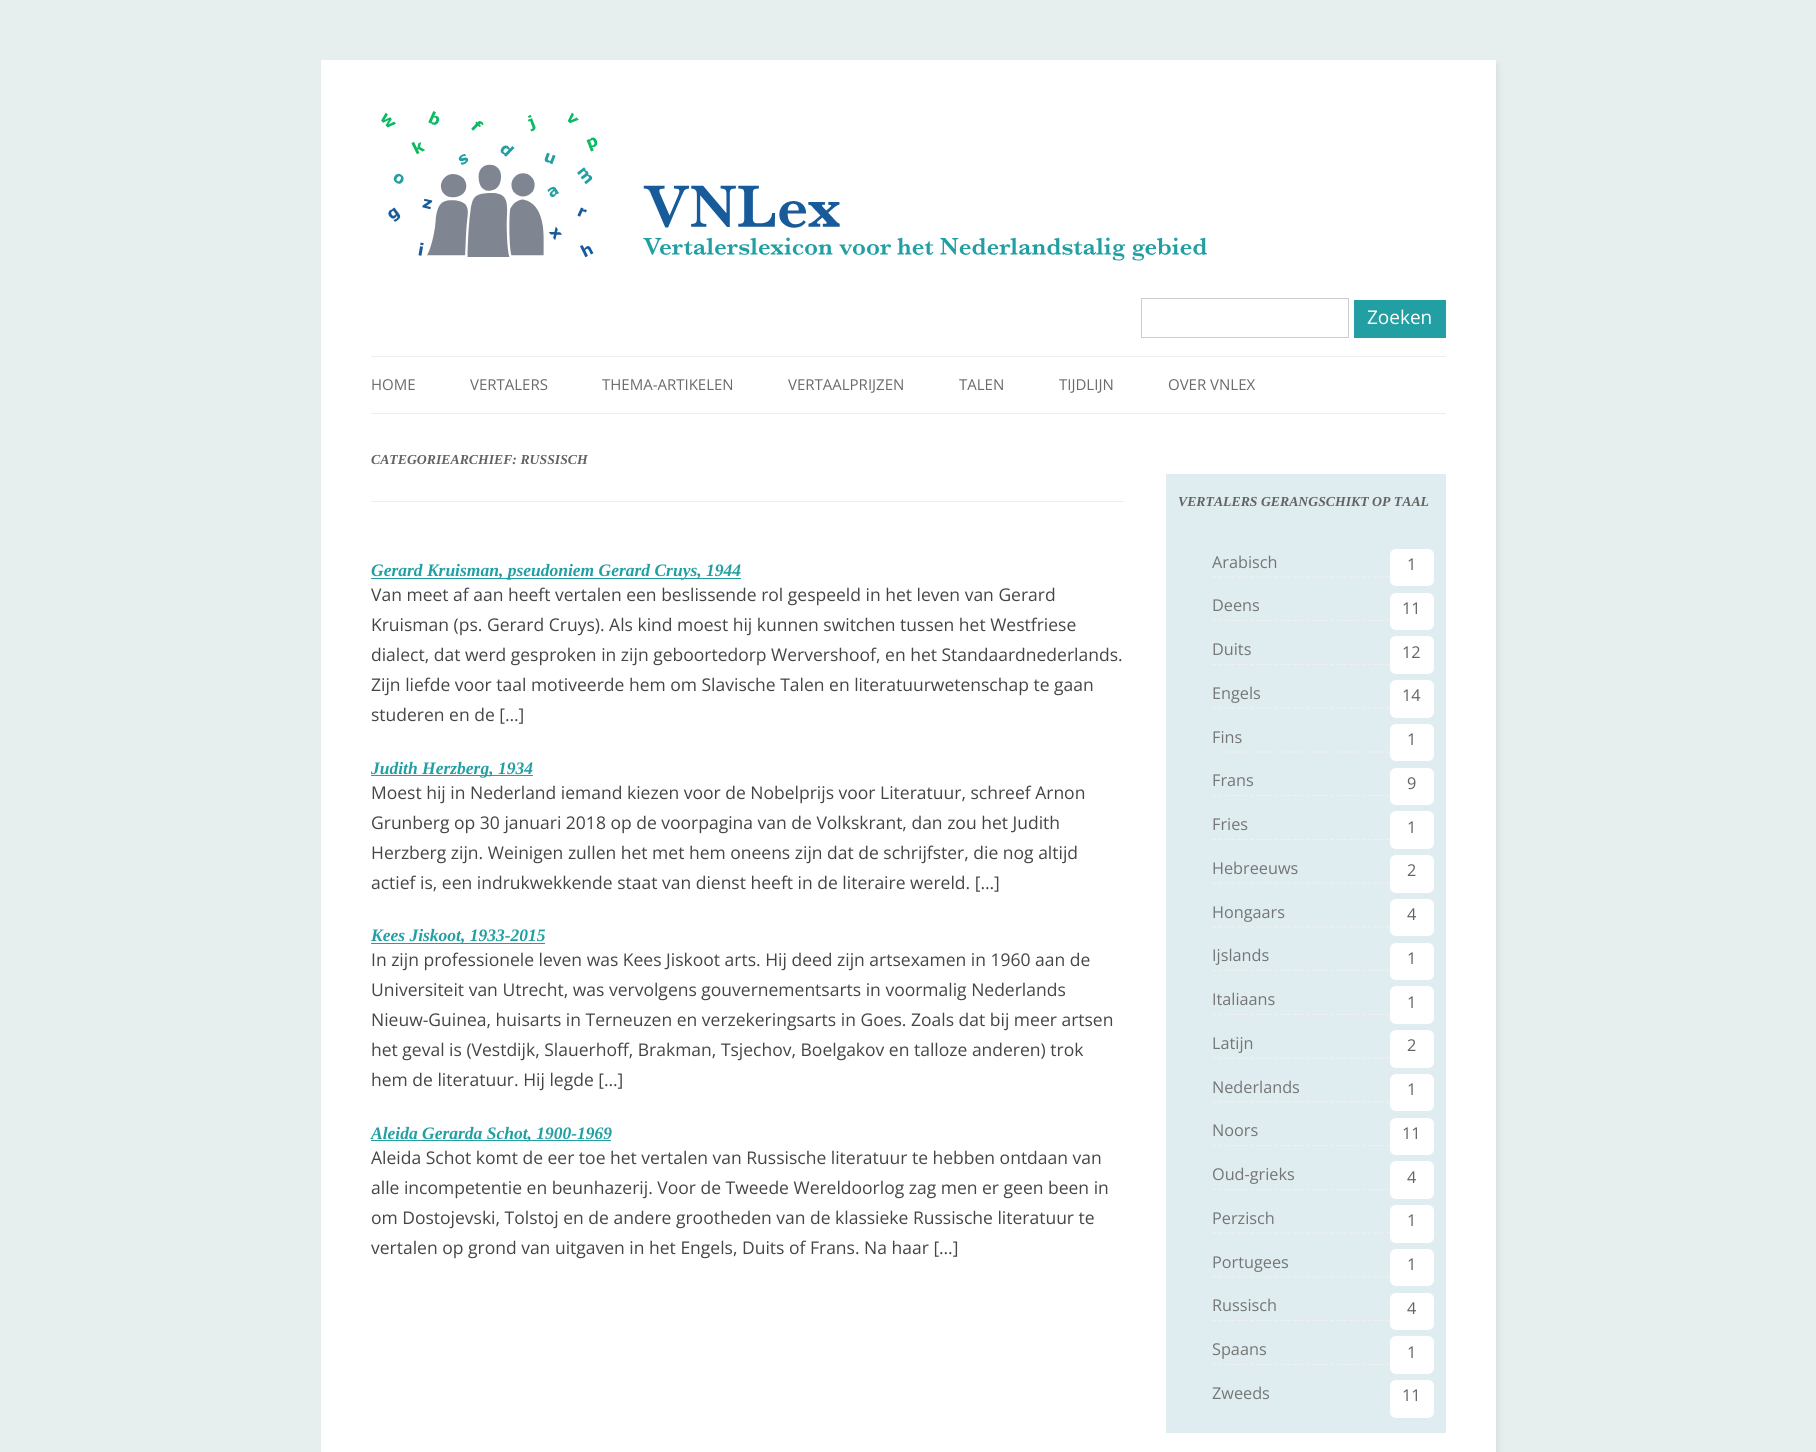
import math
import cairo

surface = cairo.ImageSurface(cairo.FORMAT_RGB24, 1816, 1452)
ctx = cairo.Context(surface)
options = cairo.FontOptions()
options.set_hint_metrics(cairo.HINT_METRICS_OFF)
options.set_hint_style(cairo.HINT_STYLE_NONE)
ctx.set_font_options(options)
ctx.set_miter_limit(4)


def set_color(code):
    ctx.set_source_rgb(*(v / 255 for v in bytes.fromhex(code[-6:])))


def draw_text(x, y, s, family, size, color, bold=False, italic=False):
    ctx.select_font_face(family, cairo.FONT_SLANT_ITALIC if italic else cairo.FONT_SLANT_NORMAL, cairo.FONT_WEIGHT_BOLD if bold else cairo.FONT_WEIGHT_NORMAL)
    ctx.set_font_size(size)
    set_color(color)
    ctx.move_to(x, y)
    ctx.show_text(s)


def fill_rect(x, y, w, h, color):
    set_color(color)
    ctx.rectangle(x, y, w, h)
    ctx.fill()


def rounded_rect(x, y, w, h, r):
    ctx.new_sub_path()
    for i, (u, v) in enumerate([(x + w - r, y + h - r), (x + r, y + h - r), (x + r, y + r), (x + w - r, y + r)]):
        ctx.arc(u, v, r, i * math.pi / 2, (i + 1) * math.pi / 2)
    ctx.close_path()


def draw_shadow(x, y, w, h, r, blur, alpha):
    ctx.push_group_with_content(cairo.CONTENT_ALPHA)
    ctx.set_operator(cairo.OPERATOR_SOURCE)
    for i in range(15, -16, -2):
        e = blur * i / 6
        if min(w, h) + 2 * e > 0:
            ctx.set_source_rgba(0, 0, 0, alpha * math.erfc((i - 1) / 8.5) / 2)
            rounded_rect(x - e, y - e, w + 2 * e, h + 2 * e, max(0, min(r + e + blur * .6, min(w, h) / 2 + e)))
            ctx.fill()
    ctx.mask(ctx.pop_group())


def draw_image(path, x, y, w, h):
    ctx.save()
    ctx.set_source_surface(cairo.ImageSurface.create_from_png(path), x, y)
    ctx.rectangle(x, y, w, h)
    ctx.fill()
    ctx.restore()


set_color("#e6eeee")
ctx.paint()
set_color("#646464")
draw_shadow(324, 64, 1175, 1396, 0, 2.5, 0.1)
fill_rect(321, 60, 1175, 1392, "#ffffff")
draw_image("assets/img1.png", 381, 111, 826, 150)
ctx.rectangle(1141.5, 298.5, 207, 39)
set_color("#cccccc")
ctx.set_line_width(1)
ctx.stroke()
fill_rect(1354, 300, 92, 38, "#219fa3")
draw_text(1367, 324, "Zoeken", "Open Sans", 19, "#ffffff")
fill_rect(371, 356, 1075, 1, "#ededed")
fill_rect(371, 413, 1075, 1, "#ededed")
draw_text(371, 390, "HOME", "Open Sans", 15, "#6a6a6a")
draw_text(470, 390, "VERTALERS", "Open Sans", 15, "#6a6a6a")
draw_text(602, 390, "THEMA-ARTIKELEN", "Open Sans", 15, "#6a6a6a")
draw_text(788, 390, "VERTAALPRIJZEN", "Open Sans", 15, "#6a6a6a")
draw_text(959, 390, "TALEN", "Open Sans", 15, "#6a6a6a")
draw_text(1059, 390, "TIJDLIJN", "Open Sans", 15, "#6a6a6a")
draw_text(1168, 390, "OVER VNLEX", "Open Sans", 15, "#6a6a6a")
fill_rect(371, 501, 753, 1, "#ededed")
draw_text(371, 464, "CATEGORIEARCHIEF: RUSSISCH", "Liberation Serif", 13.75, "#636363", bold=True, italic=True)
fill_rect(371, 578, 370, 1, "#219fa3")
draw_text(371, 576, "Gerard Kruisman, pseudoniem Gerard Cruys, 1944", "Liberation Serif", 17.5, "#219fa3", bold=True, italic=True)
draw_text(371, 601, "Van meet af aan heeft vertalen een beslissende rol gespeeld in het leven van Gerard", "Open Sans", 17.5, "#454545")
draw_text(371, 631, "Kruisman (ps. Gerard Cruys). Als kind moest hij kunnen switchen tussen het Westfriese", "Open Sans", 17.5, "#454545")
draw_text(371, 661, "dialect, dat werd gesproken in zijn geboortedorp Wervershoof, en het Standaardnederlands.", "Open Sans", 17.5, "#454545")
draw_text(371, 691, "Zijn liefde voor taal motiveerde hem om Slavische Talen en literatuurwetenschap te gaan", "Open Sans", 17.5, "#454545")
draw_text(371, 721, "studeren en de […]", "Open Sans", 17.5, "#454545")
fill_rect(371, 775, 162, 1, "#219fa3")
draw_text(371, 774, "Judith Herzberg, 1934", "Liberation Serif", 17.5, "#219fa3", bold=True, italic=True)
draw_text(371, 799, "Moest hij in Nederland iemand kiezen voor de Nobelprijs voor Literatuur, schreef Arnon", "Open Sans", 17.5, "#454545")
draw_text(371, 829, "Grunberg op 30 januari 2018 op de voorpagina van de Volkskrant, dan zou het Judith", "Open Sans", 17.5, "#454545")
draw_text(371, 859, "Herzberg zijn. Weinigen zullen het met hem oneens zijn dat de schrijfster, die nog altijd", "Open Sans", 17.5, "#454545")
draw_text(371, 889, "actief is, een indrukwekkende staat van dienst heeft in de literaire wereld. […]", "Open Sans", 17.5, "#454545")
fill_rect(371, 943, 174, 1, "#219fa3")
draw_text(371, 941, "Kees Jiskoot, 1933-2015", "Liberation Serif", 17.5, "#219fa3", bold=True, italic=True)
draw_text(371, 966, "In zijn professionele leven was Kees Jiskoot arts. Hij deed zijn artsexamen in 1960 aan de", "Open Sans", 17.5, "#454545")
draw_text(371, 996, "Universiteit van Utrecht, was vervolgens gouvernementsarts in voormalig Nederlands", "Open Sans", 17.5, "#454545")
draw_text(371, 1026, "Nieuw-Guinea, huisarts in Terneuzen en verzekeringsarts in Goes. Zoals dat bij meer artsen", "Open Sans", 17.5, "#454545")
draw_text(371, 1056, "het geval is (Vestdijk, Slauerhoff, Brakman, Tsjechov, Boelgakov en talloze anderen) trok", "Open Sans", 17.5, "#454545")
draw_text(371, 1086, "hem de literatuur. Hij legde […]", "Open Sans", 17.5, "#454545")
fill_rect(371, 1140, 240, 1, "#219fa3")
draw_text(371, 1139, "Aleida Gerarda Schot, 1900-1969", "Liberation Serif", 17.5, "#219fa3", bold=True, italic=True)
draw_text(371, 1164, "Aleida Schot komt de eer toe het vertalen van Russische literatuur te hebben ontdaan van", "Open Sans", 17.5, "#454545")
draw_text(371, 1194, "alle incompetentie en beunhazerij. Voor de Tweede Wereldoorlog zag men er geen been in", "Open Sans", 17.5, "#454545")
draw_text(371, 1224, "om Dostojevski, Tolstoj en de andere grootheden van de klassieke Russische literatuur te", "Open Sans", 17.5, "#454545")
draw_text(371, 1254, "vertalen op grond van uitgaven in het Engels, Duits of Frans. Na haar […]", "Open Sans", 17.5, "#454545")
fill_rect(1166, 474, 280, 959, "#dfecf0")
draw_text(1178, 506, "VERTALERS GERANGSCHIKT OP TAAL", "Liberation Serif", 13.75, "#636363", bold=True, italic=True)
ctx.new_path()
ctx.move_to(1212.5, 577)
ctx.line_to(1434, 577)
set_color("#f0f0f0")
ctx.set_line_width(1.2)
ctx.set_dash([3.75, 2.46])
ctx.stroke()
draw_text(1212, 568, "Arabisch", "Open Sans", 16.25, "#757575")
set_color("#ffffff")
rounded_rect(1390, 549, 44, 37, 6)
ctx.fill()
draw_text(1407, 570, "1", "Open Sans", 16.25, "#636363")
ctx.new_path()
ctx.move_to(1212.5, 620.5)
ctx.line_to(1434, 620.5)
set_color("#f0f0f0")
ctx.stroke()
draw_text(1212, 611, "Deens", "Open Sans", 16.25, "#757575")
set_color("#ffffff")
rounded_rect(1390, 593, 44, 37, 6)
ctx.fill()
draw_text(1402, 614, "11", "Open Sans", 16.25, "#636363")
ctx.new_path()
ctx.move_to(1212.5, 664.5)
ctx.line_to(1434, 664.5)
set_color("#f0f0f0")
ctx.stroke()
draw_text(1212, 655, "Duits", "Open Sans", 16.25, "#757575")
set_color("#ffffff")
rounded_rect(1390, 636, 44, 38, 6)
ctx.fill()
draw_text(1402, 658, "12", "Open Sans", 16.25, "#636363")
ctx.new_path()
ctx.move_to(1212.5, 708)
ctx.line_to(1434, 708)
set_color("#f0f0f0")
ctx.stroke()
draw_text(1212, 699, "Engels", "Open Sans", 16.25, "#757575")
set_color("#ffffff")
rounded_rect(1390, 680, 44, 38, 6)
ctx.fill()
draw_text(1402, 701, "14", "Open Sans", 16.25, "#636363")
ctx.new_path()
ctx.move_to(1212.5, 752)
ctx.line_to(1434, 752)
set_color("#f0f0f0")
ctx.stroke()
draw_text(1212, 743, "Fins", "Open Sans", 16.25, "#757575")
set_color("#ffffff")
rounded_rect(1390, 724, 44, 37, 6)
ctx.fill()
draw_text(1407, 745, "1", "Open Sans", 16.25, "#636363")
ctx.new_path()
ctx.move_to(1212.5, 795.5)
ctx.line_to(1434, 795.5)
set_color("#f0f0f0")
ctx.stroke()
draw_text(1212, 786, "Frans", "Open Sans", 16.25, "#757575")
set_color("#ffffff")
rounded_rect(1390, 768, 44, 37, 6)
ctx.fill()
draw_text(1407, 789, "9", "Open Sans", 16.25, "#636363")
ctx.new_path()
ctx.move_to(1212.5, 839.5)
ctx.line_to(1434, 839.5)
set_color("#f0f0f0")
ctx.stroke()
draw_text(1212, 830, "Fries", "Open Sans", 16.25, "#757575")
set_color("#ffffff")
rounded_rect(1390, 811, 44, 38, 6)
ctx.fill()
draw_text(1407, 833, "1", "Open Sans", 16.25, "#636363")
ctx.new_path()
ctx.move_to(1212.5, 883)
ctx.line_to(1434, 883)
set_color("#f0f0f0")
ctx.stroke()
draw_text(1212, 874, "Hebreeuws", "Open Sans", 16.25, "#757575")
set_color("#ffffff")
rounded_rect(1390, 855, 44, 38, 6)
ctx.fill()
draw_text(1407, 876, "2", "Open Sans", 16.25, "#636363")
ctx.new_path()
ctx.move_to(1212.5, 927)
ctx.line_to(1434, 927)
set_color("#f0f0f0")
ctx.stroke()
draw_text(1212, 918, "Hongaars", "Open Sans", 16.25, "#757575")
set_color("#ffffff")
rounded_rect(1390, 899, 44, 37, 6)
ctx.fill()
draw_text(1407, 920, "4", "Open Sans", 16.25, "#636363")
ctx.new_path()
ctx.move_to(1212.5, 970.5)
ctx.line_to(1434, 970.5)
set_color("#f0f0f0")
ctx.stroke()
draw_text(1212, 961, "Ijslands", "Open Sans", 16.25, "#757575")
set_color("#ffffff")
rounded_rect(1390, 943, 44, 37, 6)
ctx.fill()
draw_text(1407, 964, "1", "Open Sans", 16.25, "#636363")
ctx.new_path()
ctx.move_to(1212.5, 1014.5)
ctx.line_to(1434, 1014.5)
set_color("#f0f0f0")
ctx.stroke()
draw_text(1212, 1005, "Italiaans", "Open Sans", 16.25, "#757575")
set_color("#ffffff")
rounded_rect(1390, 986, 44, 38, 6)
ctx.fill()
draw_text(1407, 1008, "1", "Open Sans", 16.25, "#636363")
ctx.new_path()
ctx.move_to(1212.5, 1058)
ctx.line_to(1434, 1058)
set_color("#f0f0f0")
ctx.stroke()
draw_text(1212, 1049, "Latijn", "Open Sans", 16.25, "#757575")
set_color("#ffffff")
rounded_rect(1390, 1030, 44, 38, 6)
ctx.fill()
draw_text(1407, 1051, "2", "Open Sans", 16.25, "#636363")
ctx.new_path()
ctx.move_to(1212.5, 1102)
ctx.line_to(1434, 1102)
set_color("#f0f0f0")
ctx.stroke()
draw_text(1212, 1093, "Nederlands", "Open Sans", 16.25, "#757575")
set_color("#ffffff")
rounded_rect(1390, 1074, 44, 37, 6)
ctx.fill()
draw_text(1407, 1095, "1", "Open Sans", 16.25, "#636363")
ctx.new_path()
ctx.move_to(1212.5, 1145.5)
ctx.line_to(1434, 1145.5)
set_color("#f0f0f0")
ctx.stroke()
draw_text(1212, 1136, "Noors", "Open Sans", 16.25, "#757575")
set_color("#ffffff")
rounded_rect(1390, 1118, 44, 37, 6)
ctx.fill()
draw_text(1402, 1139, "11", "Open Sans", 16.25, "#636363")
ctx.new_path()
ctx.move_to(1212.5, 1189.5)
ctx.line_to(1434, 1189.5)
set_color("#f0f0f0")
ctx.stroke()
draw_text(1212, 1180, "Oud-grieks", "Open Sans", 16.25, "#757575")
set_color("#ffffff")
rounded_rect(1390, 1161, 44, 38, 6)
ctx.fill()
draw_text(1407, 1183, "4", "Open Sans", 16.25, "#636363")
ctx.new_path()
ctx.move_to(1212.5, 1233)
ctx.line_to(1434, 1233)
set_color("#f0f0f0")
ctx.stroke()
draw_text(1212, 1224, "Perzisch", "Open Sans", 16.25, "#757575")
set_color("#ffffff")
rounded_rect(1390, 1205, 44, 38, 6)
ctx.fill()
draw_text(1407, 1226, "1", "Open Sans", 16.25, "#636363")
ctx.new_path()
ctx.move_to(1212.5, 1277)
ctx.line_to(1434, 1277)
set_color("#f0f0f0")
ctx.stroke()
draw_text(1212, 1268, "Portugees", "Open Sans", 16.25, "#757575")
set_color("#ffffff")
rounded_rect(1390, 1249, 44, 37, 6)
ctx.fill()
draw_text(1407, 1270, "1", "Open Sans", 16.25, "#636363")
ctx.new_path()
ctx.move_to(1212.5, 1320.5)
ctx.line_to(1434, 1320.5)
set_color("#f0f0f0")
ctx.stroke()
draw_text(1212, 1311, "Russisch", "Open Sans", 16.25, "#757575")
set_color("#ffffff")
rounded_rect(1390, 1293, 44, 37, 6)
ctx.fill()
draw_text(1407, 1314, "4", "Open Sans", 16.25, "#636363")
ctx.new_path()
ctx.move_to(1212.5, 1364.5)
ctx.line_to(1434, 1364.5)
set_color("#f0f0f0")
ctx.stroke()
draw_text(1212, 1355, "Spaans", "Open Sans", 16.25, "#757575")
set_color("#ffffff")
rounded_rect(1390, 1336, 44, 38, 6)
ctx.fill()
draw_text(1407, 1358, "1", "Open Sans", 16.25, "#636363")
draw_text(1212, 1399, "Zweeds", "Open Sans", 16.25, "#757575")
set_color("#ffffff")
rounded_rect(1390, 1380, 44, 38, 6)
ctx.fill()
draw_text(1402, 1401, "11", "Open Sans", 16.25, "#636363")
surface.write_to_png("output.png")
